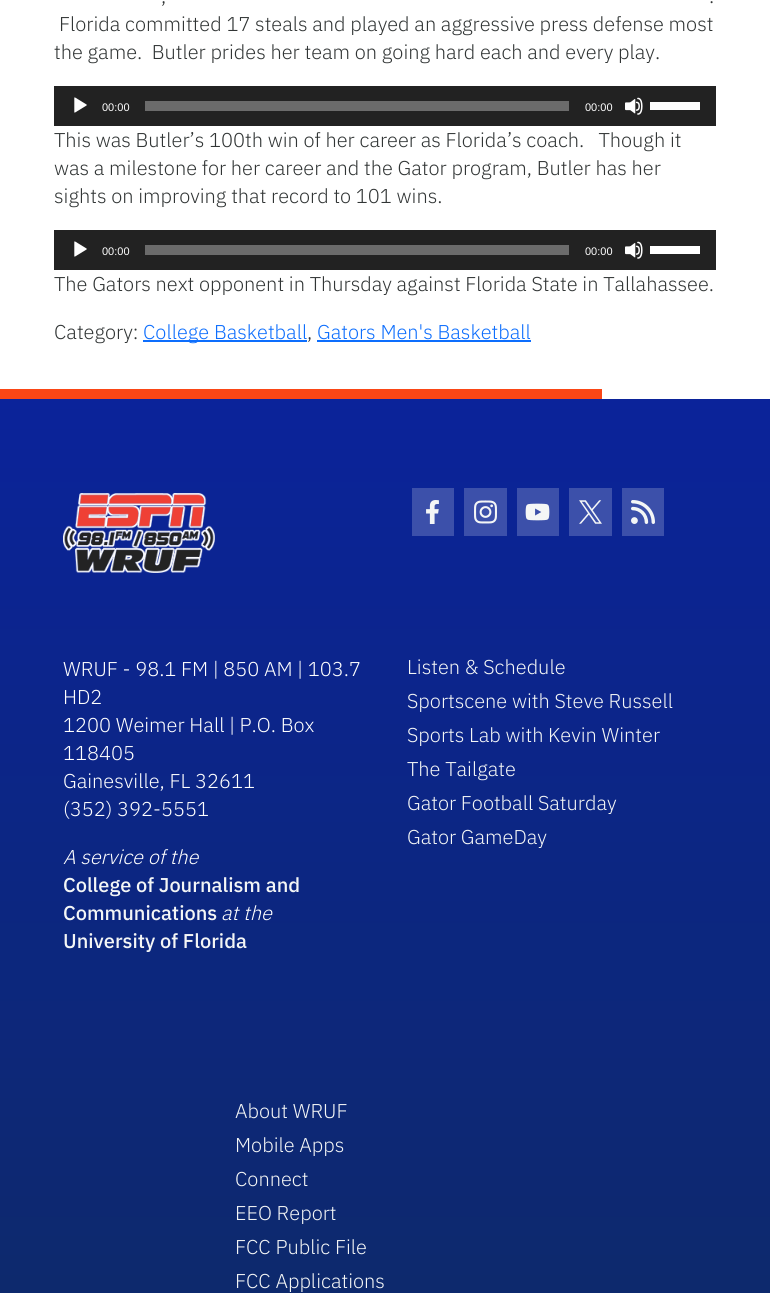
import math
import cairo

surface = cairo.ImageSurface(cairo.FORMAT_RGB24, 770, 1293)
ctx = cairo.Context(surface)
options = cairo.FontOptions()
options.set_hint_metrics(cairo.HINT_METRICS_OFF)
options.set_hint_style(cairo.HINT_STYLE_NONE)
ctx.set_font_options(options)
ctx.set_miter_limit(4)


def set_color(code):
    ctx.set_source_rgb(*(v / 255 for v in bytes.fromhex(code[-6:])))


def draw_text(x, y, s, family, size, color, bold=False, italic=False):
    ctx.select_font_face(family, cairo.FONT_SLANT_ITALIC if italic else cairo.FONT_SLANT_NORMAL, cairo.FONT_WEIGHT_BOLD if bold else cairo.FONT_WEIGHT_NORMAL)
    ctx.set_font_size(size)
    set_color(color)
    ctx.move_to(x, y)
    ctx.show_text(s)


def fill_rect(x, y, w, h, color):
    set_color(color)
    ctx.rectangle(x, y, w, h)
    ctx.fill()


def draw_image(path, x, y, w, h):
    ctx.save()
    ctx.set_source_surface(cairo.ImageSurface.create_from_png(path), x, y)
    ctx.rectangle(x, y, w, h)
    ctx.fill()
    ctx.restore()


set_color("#ffffff")
ctx.paint()
draw_text(161, 3, ",", "IBM Plex Sans Light", 20, "#313535")
draw_text(709, 3, ".", "IBM Plex Sans Light", 20, "#313535")
draw_text(59, 31, "Florida committed 17 steals and played an aggressive press defense most", "IBM Plex Sans Light", 20, "#313535")
draw_text(54, 59, "the game.  Butler prides her team on going hard each and every play.", "IBM Plex Sans Light", 20, "#313535")
fill_rect(54, 86, 662, 40, "#222222")
draw_image("assets/img1.png", 74, 97, 13, 16)
draw_text(102, 111, "00:00", "Liberation Sans", 11, "#ffffff")
fill_rect(145, 101, 424, 10, "#6b6b6b")
draw_text(585, 111, "00:00", "Liberation Sans", 11, "#ffffff")
draw_image("assets/img2.png", 625, 97, 18, 18)
fill_rect(650, 102, 50, 8, "#ffffff")
draw_text(54, 147, "This was Butler’s 100th win of her career as Florida’s coach.   Though it", "IBM Plex Sans Light", 20, "#313535")
draw_text(54, 175, "was a milestone for her career and the Gator program, Butler has her", "IBM Plex Sans Light", 20, "#313535")
draw_text(54, 203, "sights on improving that record to 101 wins.", "IBM Plex Sans Light", 20, "#313535")
fill_rect(54, 230, 662, 40, "#222222")
draw_image("assets/img1.png", 74, 241, 13, 16)
draw_text(102, 255, "00:00", "Liberation Sans", 11, "#ffffff")
fill_rect(145, 245, 424, 10, "#6b6b6b")
draw_text(585, 255, "00:00", "Liberation Sans", 11, "#ffffff")
draw_image("assets/img2.png", 625, 241, 18, 18)
fill_rect(650, 246, 50, 8, "#ffffff")
draw_text(54, 291, "The Gators next opponent in Thursday against Florida State in Tallahassee.", "IBM Plex Sans Light", 20, "#313535")
draw_text(54, 339, "Category:", "IBM Plex Sans Light", 20, "#313535")
fill_rect(143, 340, 164, 2, "#0d6efd")
draw_text(143, 339, "College Basketball", "IBM Plex Sans Light", 20, "#0d6efd")
draw_text(307, 339, ",", "IBM Plex Sans Light", 20, "#313535")
draw_text(317, 339, "Gators Men's Basketball", "IBM Plex Sans Light", 20, "#0d6efd")
fill_rect(317, 340, 214, 2, "#0d6efd")
fill_rect(0, 389, 602, 10, "#fa4616")
gradient = cairo.LinearGradient(385, 399, 385, 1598)
gradient.add_color_stop_rgba(0, 0.043, 0.137, 0.604, 1)
gradient.add_color_stop_rgba(1, 0.055, 0.169, 0.365, 1)
ctx.set_source(gradient)
ctx.rectangle(0, 399, 770, 894)
ctx.fill()
draw_image("assets/img3.png", 63, 493, 152, 80)
fill_rect(412, 488, 42, 48, "#3c50aa")
draw_image("assets/img4.png", 426, 500, 13, 24)
fill_rect(464, 488, 43, 48, "#3c50aa")
draw_image("assets/img5.png", 474, 500, 23, 24)
fill_rect(517, 488, 42, 48, "#3c50aa")
draw_image("assets/img6.png", 525, 503, 25, 18)
fill_rect(569, 488, 43, 48, "#3c50aa")
draw_image("assets/img7.png", 579, 500, 23, 24)
fill_rect(622, 488, 42, 48, "#3c50aa")
draw_image("assets/img8.png", 631, 500, 24, 24)
draw_text(63, 676, "WRUF - 98.1 FM | 850 AM | 103.7", "IBM Plex Sans Light", 20, "#ffffff")
draw_text(63, 704, "HD2", "IBM Plex Sans Light", 20, "#ffffff")
draw_text(63, 732, "1200 Weimer Hall | P.O. Box", "IBM Plex Sans Light", 20, "#ffffff")
draw_text(63, 760, "118405", "IBM Plex Sans Light", 20, "#ffffff")
draw_text(63, 788, "Gainesville, FL 32611", "IBM Plex Sans Light", 20, "#ffffff")
draw_text(63, 816, "(352) 392-5551", "IBM Plex Sans Light", 20, "#ffffff")
draw_text(63, 864, "A service of the", "IBM Plex Sans Light", 20, "#ffffff", italic=True)
draw_text(63, 892, "College of Journalism and", "IBM Plex Sans Medium", 20, "#f4f6f6")
draw_text(63, 920, "Communications", "IBM Plex Sans Medium", 20, "#f4f6f6")
draw_text(221, 920, "at the", "IBM Plex Sans Light", 20, "#ffffff", italic=True)
draw_text(63, 948, "University of Florida", "IBM Plex Sans Medium", 20, "#f4f6f6")
draw_text(407, 674, "Listen & Schedule", "IBM Plex Sans Light", 20, "#f4f6f6")
draw_text(407, 708, "Sportscene with Steve Russell", "IBM Plex Sans Light", 20, "#f4f6f6")
draw_text(407, 742, "Sports Lab with Kevin Winter", "IBM Plex Sans Light", 20, "#f4f6f6")
draw_text(407, 776, "The Tailgate", "IBM Plex Sans Light", 20, "#f4f6f6")
draw_text(407, 810, "Gator Football Saturday", "IBM Plex Sans Light", 20, "#f4f6f6")
draw_text(407, 844, "Gator GameDay", "IBM Plex Sans Light", 20, "#f4f6f6")
draw_text(235, 1118, "About WRUF", "IBM Plex Sans Light", 20, "#f4f6f6")
draw_text(235, 1152, "Mobile Apps", "IBM Plex Sans Light", 20, "#f4f6f6")
draw_text(235, 1186, "Connect", "IBM Plex Sans Light", 20, "#f4f6f6")
draw_text(235, 1220, "EEO Report", "IBM Plex Sans Light", 20, "#f4f6f6")
draw_text(235, 1254, "FCC Public File", "IBM Plex Sans Light", 20, "#f4f6f6")
draw_text(235, 1288, "FCC Applications", "IBM Plex Sans Light", 20, "#f4f6f6")
surface.write_to_png("output.png")
